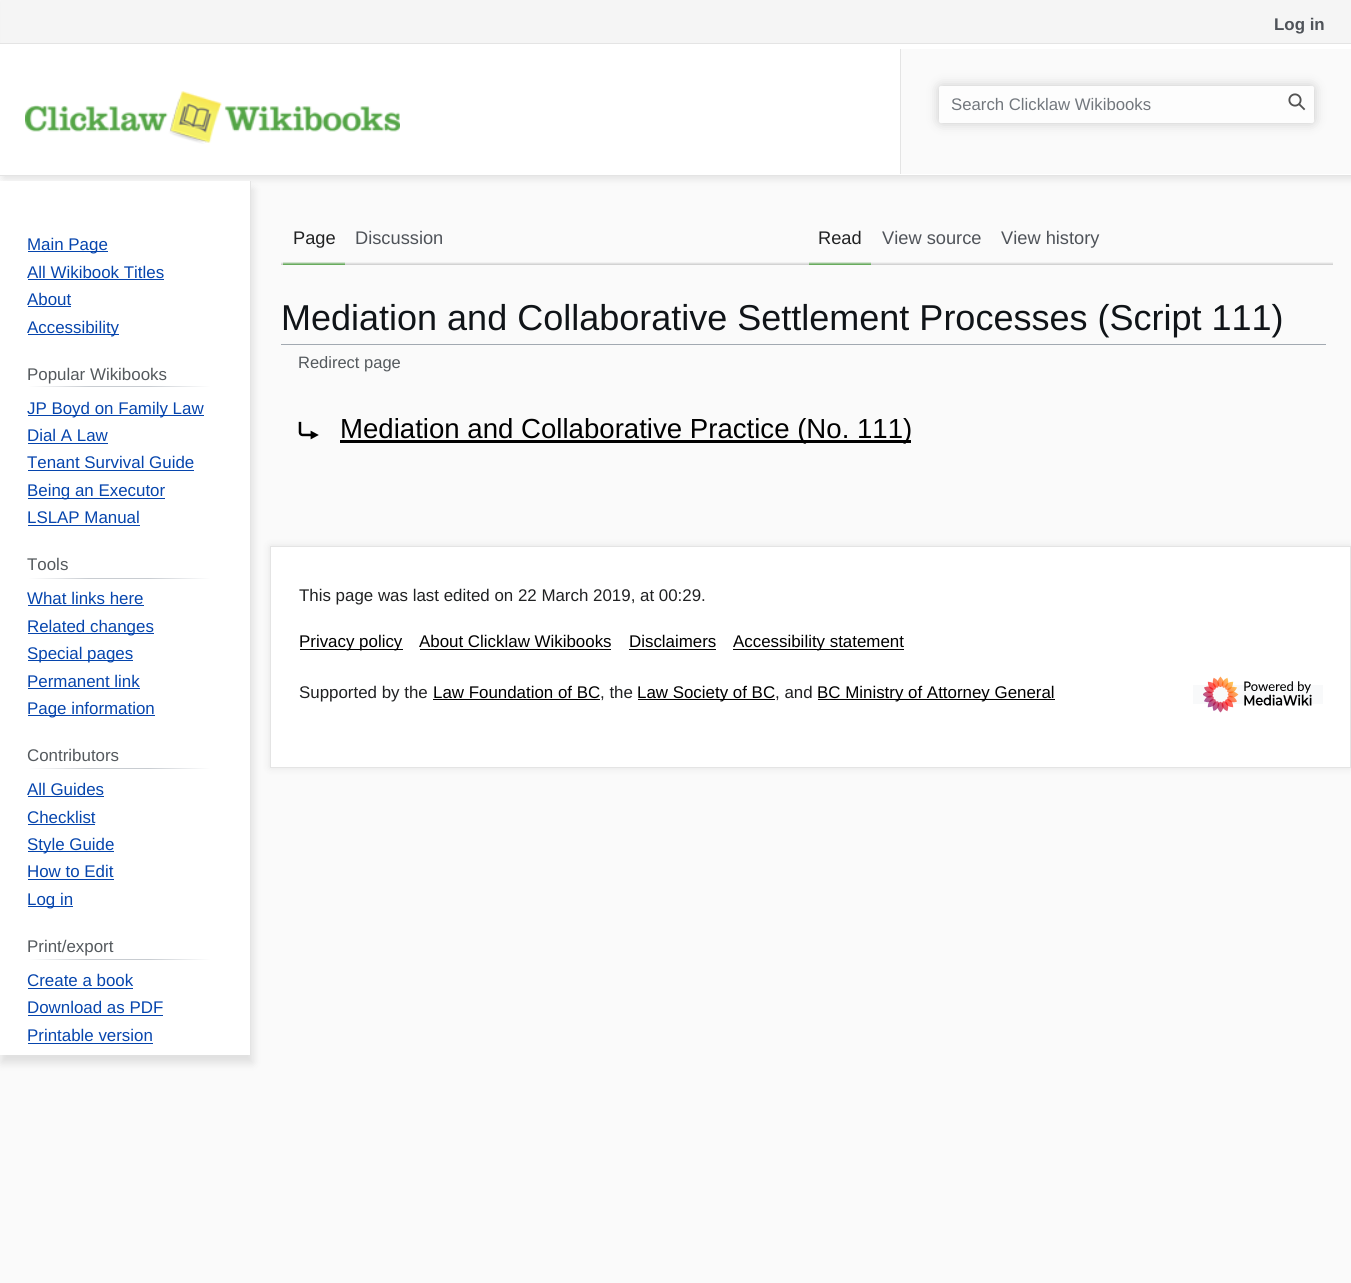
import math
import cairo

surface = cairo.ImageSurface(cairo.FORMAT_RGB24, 1351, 1283)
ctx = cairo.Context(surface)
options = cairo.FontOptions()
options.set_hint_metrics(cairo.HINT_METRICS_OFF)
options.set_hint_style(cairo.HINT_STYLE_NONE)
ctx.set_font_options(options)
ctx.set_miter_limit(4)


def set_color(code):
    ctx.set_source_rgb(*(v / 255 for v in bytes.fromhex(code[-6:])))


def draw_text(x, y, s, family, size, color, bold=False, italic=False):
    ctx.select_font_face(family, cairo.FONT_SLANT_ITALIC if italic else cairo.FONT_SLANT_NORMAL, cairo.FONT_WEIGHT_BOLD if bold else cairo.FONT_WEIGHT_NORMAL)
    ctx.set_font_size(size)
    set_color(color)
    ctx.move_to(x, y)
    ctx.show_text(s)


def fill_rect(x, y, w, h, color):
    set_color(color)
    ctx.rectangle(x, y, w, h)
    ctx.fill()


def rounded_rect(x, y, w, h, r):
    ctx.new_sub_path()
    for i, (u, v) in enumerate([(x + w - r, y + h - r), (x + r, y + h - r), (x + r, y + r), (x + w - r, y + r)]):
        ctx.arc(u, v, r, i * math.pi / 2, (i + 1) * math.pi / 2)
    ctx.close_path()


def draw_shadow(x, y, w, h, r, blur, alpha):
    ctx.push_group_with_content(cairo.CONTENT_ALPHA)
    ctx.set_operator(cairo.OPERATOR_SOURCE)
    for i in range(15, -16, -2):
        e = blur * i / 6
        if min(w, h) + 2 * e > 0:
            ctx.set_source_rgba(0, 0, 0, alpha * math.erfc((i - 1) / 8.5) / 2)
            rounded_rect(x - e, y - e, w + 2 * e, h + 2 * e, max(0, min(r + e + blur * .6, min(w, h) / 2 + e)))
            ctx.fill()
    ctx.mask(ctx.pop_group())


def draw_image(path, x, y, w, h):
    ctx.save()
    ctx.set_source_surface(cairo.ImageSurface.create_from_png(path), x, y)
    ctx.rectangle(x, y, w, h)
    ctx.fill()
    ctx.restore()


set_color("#fafafa")
ctx.paint()
set_color("#000000")
draw_shadow(4, 1, 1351, 177, 0, 4.5, 0.11)
fill_rect(0, 44, 1351, 131, "#ffffff")
fill_rect(0, 175, 1351, 1, "#e4e4e4")
fill_rect(1, 0, 1350, 43, "#f5f5f5")
fill_rect(0, 43, 1351, 1, "#e4e4e4")
draw_text(1274, 30, "Log in", "Liberation Sans", 16.9, "#4f5359", bold=True)
gradient = cairo.LinearGradient(544, 265, 544, 203)
gradient.add_color_stop_rgba(0, 0.792, 0.792, 0.792, 1)
gradient.add_color_stop_rgba(0.05, 0.98, 0.98, 0.98, 1)
gradient.add_color_stop_rgba(1, 0.98, 0.98, 0.98, 1)
ctx.set_source(gradient)
ctx.rectangle(281, 262, 527, 3)
ctx.fill()
gradient = cairo.LinearGradient(314, 265, 314, 203)
gradient.add_color_stop_rgba(0, 0.329, 0.647, 0.275, 1)
gradient.add_color_stop_rgba(0.05, 0.329, 0.647, 0.275, 0)
gradient.add_color_stop_rgba(1, 0, 0, 0, 0)
ctx.set_source(gradient)
ctx.rectangle(283, 262, 62, 3)
ctx.fill()
draw_text(293, 244, "Page", "Liberation Sans", 18.25, "#202122")
draw_text(355, 244, "Discussion", "Liberation Sans", 18.25, "#4f5359")
gradient = cairo.LinearGradient(1070, 265, 1070, 203)
gradient.add_color_stop_rgba(0, 0.792, 0.792, 0.792, 1)
gradient.add_color_stop_rgba(0.05, 0.98, 0.98, 0.98, 1)
gradient.add_color_stop_rgba(1, 0.98, 0.98, 0.98, 1)
ctx.set_source(gradient)
ctx.rectangle(808, 262, 525, 3)
ctx.fill()
fill_rect(901, 49, 450, 125, "#fafafa")
fill_rect(900, 49, 1, 125, "#e4e4e4")
ctx.save()
ctx.set_fill_rule(cairo.FILL_RULE_EVEN_ODD)
ctx.new_path()
ctx.move_to(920, 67)
ctx.line_to(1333, 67)
ctx.line_to(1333, 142)
ctx.line_to(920, 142)
ctx.close_path()
ctx.move_to(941.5, 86)
ctx.line_to(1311.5, 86)
ctx.curve_to(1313, 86, 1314, 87, 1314, 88.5)
ctx.line_to(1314, 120.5)
ctx.curve_to(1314, 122, 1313, 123, 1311.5, 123)
ctx.line_to(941.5, 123)
ctx.curve_to(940, 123, 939, 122, 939, 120.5)
ctx.line_to(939, 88.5)
ctx.curve_to(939, 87, 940, 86, 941.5, 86)
ctx.close_path()
ctx.clip()
set_color("#000000")
draw_shadow(939, 86, 375, 37, 2.5, 6, 0.2)
ctx.restore()
ctx.set_source_rgba(1, 1, 1, 0.5)
rounded_rect(939, 86, 375, 37, 2.5)
ctx.fill()
draw_text(951, 110, "Search Clicklaw Wikibooks", "Liberation Sans", 16.75, "#72777d")
draw_image("assets/img1.png", 1288, 93, 18, 18)
gradient = cairo.LinearGradient(840, 265, 840, 203)
gradient.add_color_stop_rgba(0, 0.329, 0.647, 0.275, 1)
gradient.add_color_stop_rgba(0.05, 0.329, 0.647, 0.275, 0)
gradient.add_color_stop_rgba(1, 0, 0, 0, 0)
ctx.set_source(gradient)
ctx.rectangle(809, 262, 62, 3)
ctx.fill()
draw_text(818, 244, "Read", "Liberation Sans", 18.25, "#202122")
draw_text(882, 244, "View source", "Liberation Sans", 18.25, "#4f5359")
draw_text(1001, 244, "View history", "Liberation Sans", 18.25, "#4f5359")
set_color("#000000")
draw_shadow(1, 189, 252, 874, 0, 4.5, 0.11)
fill_rect(0, 181, 250, 874, "#ffffff")
fill_rect(250, 181, 1, 874, "#e4e4e4")
draw_image("assets/img2.png", 25, 91, 375, 53)
fill_rect(28, 251, 80, 1, "#0645ad")
draw_text(27, 250, "Main Page", "Liberation Sans", 16.9, "#0645ad")
draw_text(27, 278, "All Wikibook Titles", "Liberation Sans", 16.9, "#0645ad")
fill_rect(28, 279, 136, 1, "#0645ad")
draw_text(27, 305, "About", "Liberation Sans", 16.9, "#0645ad")
fill_rect(28, 306, 43, 1, "#0645ad")
fill_rect(28, 334, 91, 1, "#0645ad")
draw_text(27, 333, "Accessibility", "Liberation Sans", 16.9, "#0645ad")
gradient = cairo.LinearGradient(28, 387, 211, 387)
gradient.add_color_stop_rgba(0, 1, 1, 1, 1)
gradient.add_color_stop_rgba(0.33, 0.784, 0.8, 0.82, 1)
gradient.add_color_stop_rgba(0.66, 0.784, 0.8, 0.82, 1)
gradient.add_color_stop_rgba(1, 1, 1, 1, 1)
ctx.set_source(gradient)
ctx.rectangle(28, 386, 183, 1)
ctx.fill()
draw_text(27, 380, "Popular Wikibooks", "Liberation Sans", 16.9, "#54595d")
fill_rect(28, 415, 176, 1, "#0645ad")
draw_text(27, 414, "JP Boyd on Family Law", "Liberation Sans", 16.9, "#0645ad")
draw_text(27, 441, "Dial A Law", "Liberation Sans", 16.9, "#0645ad")
fill_rect(28, 443, 80, 1, "#0645ad")
draw_text(27, 468, "Tenant Survival Guide", "Liberation Sans", 16.9, "#0645ad")
fill_rect(28, 470, 166, 1, "#0645ad")
fill_rect(28, 498, 137, 1, "#0645ad")
draw_text(27, 496, "Being an Executor", "Liberation Sans", 16.9, "#0645ad")
draw_text(27, 523, "LSLAP Manual", "Liberation Sans", 16.9, "#0645ad")
fill_rect(28, 525, 112, 1, "#0645ad")
gradient = cairo.LinearGradient(28, 578, 211, 578)
gradient.add_color_stop_rgba(0, 1, 1, 1, 1)
gradient.add_color_stop_rgba(0.33, 0.784, 0.8, 0.82, 1)
gradient.add_color_stop_rgba(0.66, 0.784, 0.8, 0.82, 1)
gradient.add_color_stop_rgba(1, 1, 1, 1, 1)
ctx.set_source(gradient)
ctx.rectangle(28, 578, 183, 1)
ctx.fill()
draw_text(27, 570, "Tools", "Liberation Sans", 16.9, "#54595d")
draw_text(27, 604, "What links here", "Liberation Sans", 16.9, "#0645ad")
fill_rect(28, 605, 116, 1, "#0645ad")
fill_rect(28, 633, 126, 1, "#0645ad")
draw_text(27, 632, "Related changes", "Liberation Sans", 16.9, "#0645ad")
fill_rect(28, 660, 105, 1, "#0645ad")
draw_text(27, 659, "Special pages", "Liberation Sans", 16.9, "#0645ad")
draw_text(27, 687, "Permanent link", "Liberation Sans", 16.9, "#0645ad")
fill_rect(28, 688, 112, 1, "#0645ad")
fill_rect(28, 715, 127, 1, "#0645ad")
draw_text(27, 714, "Page information", "Liberation Sans", 16.9, "#0645ad")
gradient = cairo.LinearGradient(28, 768, 211, 768)
gradient.add_color_stop_rgba(0, 1, 1, 1, 1)
gradient.add_color_stop_rgba(0.33, 0.784, 0.8, 0.82, 1)
gradient.add_color_stop_rgba(0.66, 0.784, 0.8, 0.82, 1)
gradient.add_color_stop_rgba(1, 1, 1, 1, 1)
ctx.set_source(gradient)
ctx.rectangle(28, 768, 183, 1)
ctx.fill()
draw_text(27, 761, "Contributors", "Liberation Sans", 16.9, "#54595d")
draw_text(27, 795, "All Guides", "Liberation Sans", 16.9, "#0645ad")
fill_rect(28, 796, 76, 1, "#0645ad")
draw_text(27, 823, "Checklist", "Liberation Sans", 16.9, "#0645ad")
fill_rect(28, 824, 67, 1, "#0645ad")
fill_rect(28, 851, 86, 1, "#0645ad")
draw_text(27, 850, "Style Guide", "Liberation Sans", 16.9, "#0645ad")
draw_text(27, 877, "How to Edit", "Liberation Sans", 16.9, "#0645ad")
fill_rect(28, 879, 86, 1, "#0645ad")
fill_rect(28, 906, 45, 1, "#0645ad")
draw_text(27, 905, "Log in", "Liberation Sans", 16.9, "#0645ad")
gradient = cairo.LinearGradient(28, 959, 211, 959)
gradient.add_color_stop_rgba(0, 1, 1, 1, 1)
gradient.add_color_stop_rgba(0.33, 0.784, 0.8, 0.82, 1)
gradient.add_color_stop_rgba(0.66, 0.784, 0.8, 0.82, 1)
gradient.add_color_stop_rgba(1, 1, 1, 1, 1)
ctx.set_source(gradient)
ctx.rectangle(28, 959, 183, 1)
ctx.fill()
draw_text(27, 952, "Print/export", "Liberation Sans", 16.9, "#54595d")
draw_text(27, 986, "Create a book", "Liberation Sans", 16.9, "#0645ad")
fill_rect(28, 988, 105, 1, "#0645ad")
draw_text(27, 1013, "Download as PDF", "Liberation Sans", 16.9, "#0645ad")
fill_rect(28, 1015, 135, 1, "#0645ad")
draw_text(27, 1041, "Printable version", "Liberation Sans", 16.9, "#0645ad")
fill_rect(28, 1043, 125, 1, "#0645ad")
fill_rect(281, 344, 1045, 1, "#a2a9b1")
draw_text(281, 330, "Mediation and Collaborative Settlement Processes (Script 111)", "Liberation Sans", 36, "#101418")
draw_text(298, 368, "Redirect page", "Liberation Sans", 16.5, "#54595d")
draw_image("assets/img3.png", 298, 421, 21, 19)
fill_rect(340, 440, 571, 3, "#000000")
draw_text(340, 438, "Mediation and Collaborative Practice (No. 111)", "Liberation Sans", 27.6, "#000000")
set_color("#000000")
draw_shadow(270, 546, 1081, 222, 0, 4, 0.09)
set_color("#ffffff")
ctx.rectangle(270.5, 546.5, 1080, 221)
ctx.fill_preserve()
set_color("#e4e4e4")
ctx.set_line_width(1)
ctx.stroke()
draw_text(299, 601, "This page was last edited on 22 March 2019, at 00:29.", "Liberation Sans", 16.9, "#202122")
fill_rect(300, 649, 103, 1, "#000000")
draw_text(299, 647, "Privacy policy", "Liberation Sans", 16.9, "#000000")
draw_text(419, 647, "About Clicklaw Wikibooks", "Liberation Sans", 16.9, "#000000")
fill_rect(420, 649, 191, 1, "#000000")
draw_text(629, 647, "Disclaimers", "Liberation Sans", 16.9, "#000000")
fill_rect(629, 649, 87, 1, "#000000")
fill_rect(733, 649, 171, 1, "#000000")
draw_text(733, 647, "Accessibility statement", "Liberation Sans", 16.9, "#000000")
draw_text(299, 698, "Supported by the", "Liberation Sans", 16.9, "#202122")
draw_text(433, 698, "Law Foundation of BC", "Liberation Sans", 16.9, "#000000")
fill_rect(433, 699, 167, 1, "#000000")
draw_text(600, 698, ", the", "Liberation Sans", 16.9, "#202122")
fill_rect(638, 699, 137, 1, "#000000")
draw_text(637, 698, "Law Society of BC", "Liberation Sans", 16.9, "#000000")
draw_text(775, 698, ", and", "Liberation Sans", 16.9, "#202122")
fill_rect(818, 699, 237, 1, "#000000")
draw_text(817, 698, "BC Ministry of Attorney General", "Liberation Sans", 16.9, "#000000")
fill_rect(1193, 685, 130, 19, "#f8f9fa")
draw_image("assets/img4.png", 1203, 676, 109, 37)
surface.write_to_png("output.png")
